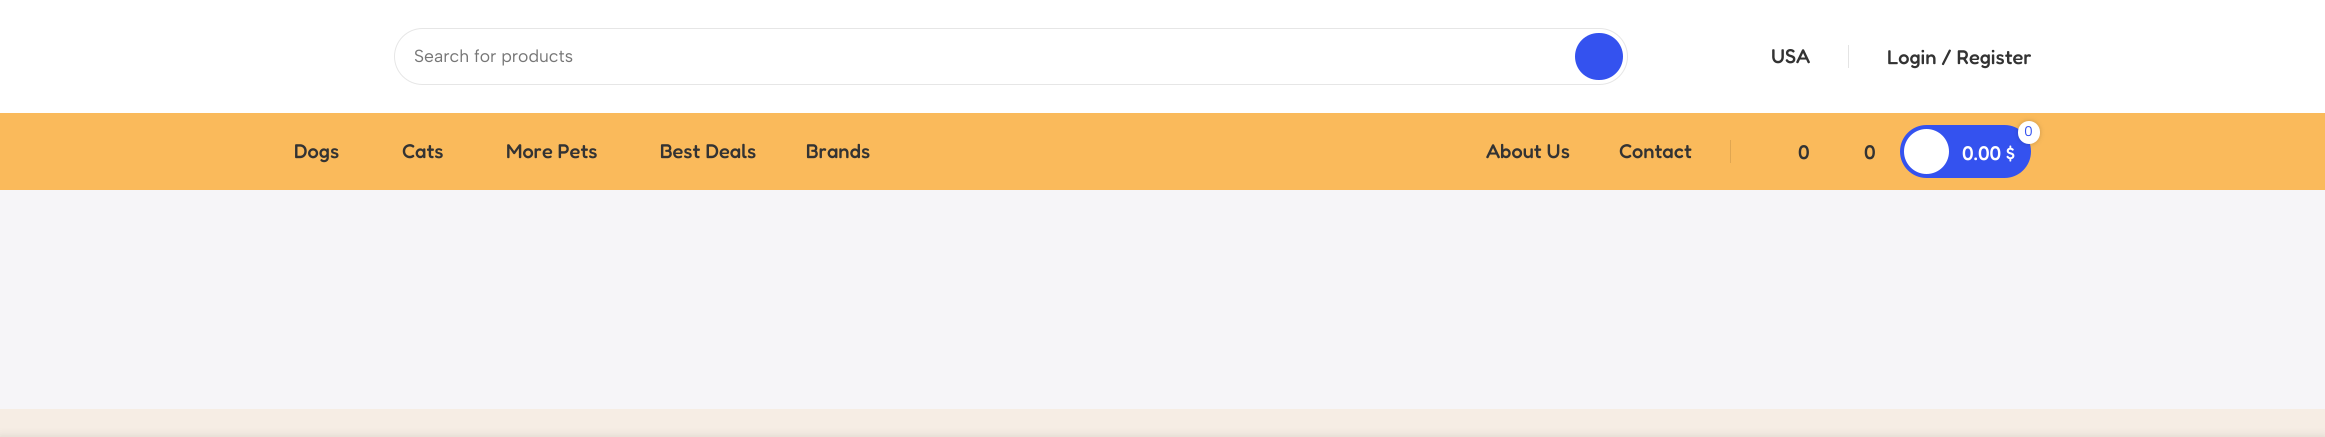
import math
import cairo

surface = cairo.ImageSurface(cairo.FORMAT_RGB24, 2325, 437)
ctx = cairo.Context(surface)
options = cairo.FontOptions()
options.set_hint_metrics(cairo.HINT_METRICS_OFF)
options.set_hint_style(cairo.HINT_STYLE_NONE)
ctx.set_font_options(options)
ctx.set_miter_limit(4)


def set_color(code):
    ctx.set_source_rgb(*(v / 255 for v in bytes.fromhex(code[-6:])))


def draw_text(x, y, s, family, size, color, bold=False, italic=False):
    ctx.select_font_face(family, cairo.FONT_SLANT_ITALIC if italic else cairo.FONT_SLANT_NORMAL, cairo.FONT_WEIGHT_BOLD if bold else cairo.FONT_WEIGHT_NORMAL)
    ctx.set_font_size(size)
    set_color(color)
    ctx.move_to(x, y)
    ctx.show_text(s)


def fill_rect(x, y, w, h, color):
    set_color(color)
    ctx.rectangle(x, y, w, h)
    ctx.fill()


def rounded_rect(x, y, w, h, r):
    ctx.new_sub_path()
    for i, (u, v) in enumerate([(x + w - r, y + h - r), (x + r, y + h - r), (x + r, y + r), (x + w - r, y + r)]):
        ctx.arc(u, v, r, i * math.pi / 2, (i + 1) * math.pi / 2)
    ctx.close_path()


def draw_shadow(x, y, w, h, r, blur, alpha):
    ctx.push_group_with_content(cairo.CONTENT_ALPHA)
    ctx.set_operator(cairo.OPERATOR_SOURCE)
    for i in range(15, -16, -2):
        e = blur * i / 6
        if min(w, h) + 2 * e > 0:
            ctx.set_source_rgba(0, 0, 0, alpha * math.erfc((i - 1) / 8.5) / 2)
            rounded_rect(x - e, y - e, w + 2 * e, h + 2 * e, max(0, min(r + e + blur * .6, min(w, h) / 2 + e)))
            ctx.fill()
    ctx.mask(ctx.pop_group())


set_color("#ffffff")
ctx.paint()
rounded_rect(394.5, 28.5, 1233, 56, 28)
set_color("#e6e6e6")
ctx.set_line_width(1)
ctx.stroke()
draw_text(414, 62, "Search for products", "Albert Sans", 17.5, "#767676")
set_color("#3452ef")
rounded_rect(1575, 33, 48, 47, 23.5)
ctx.fill()
draw_text(1771, 63, "USA", "Fredoka Medium", 20, "#333333")
fill_rect(1848, 45, 1, 23, "#e4e4e4")
draw_text(1887, 64, "Login / Register", "Fredoka Medium", 20, "#333333")
fill_rect(0, 113, 2325, 77, "#faba5b")
draw_text(294, 158, "Dogs", "Fredoka Medium", 20, "#333333")
draw_text(402, 158, "Cats", "Fredoka Medium", 20, "#333333")
draw_text(506, 158, "More Pets", "Fredoka Medium", 20, "#333333")
draw_text(660, 158, "Best Deals", "Fredoka Medium", 20, "#333333")
draw_text(806, 158, "Brands", "Fredoka Medium", 20, "#333333")
draw_text(1486, 158, "About Us", "Fredoka Medium", 20, "#333333")
draw_text(1619, 158, "Contact", "Fredoka Medium", 20, "#333333")
fill_rect(1730, 140, 1, 23, "#e0a651")
draw_text(1798, 159, "0", "Fredoka Medium", 20, "#333333")
draw_text(1864, 159, "0", "Fredoka Medium", 20, "#333333")
set_color("#3452ef")
rounded_rect(1900, 125, 131, 53, 26.5)
ctx.fill()
set_color("#ffffff")
ctx.arc(1926.5, 151.5, 22.5, 0, 2 * math.pi)
ctx.fill()
set_color("#000000")
draw_shadow(2018, 121, 22, 23, 11, 2.5, 0.17)
set_color("#ffffff")
rounded_rect(2018, 121, 22, 23, 11)
ctx.fill()
draw_text(2024, 136, "0", "Albert Sans", 14, "#3452ef")
draw_text(1962, 160, "0.00 $", "Fredoka Medium", 20, "#ffffff")
fill_rect(0, 190, 2325, 219, "#f6f5f8")
fill_rect(0, 409, 2325, 28, "#f6ede4")
set_color("#000000")
draw_shadow(0, 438, 2325, 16, 0, 5.5, 0.14)
surface.write_to_png("output.png")
